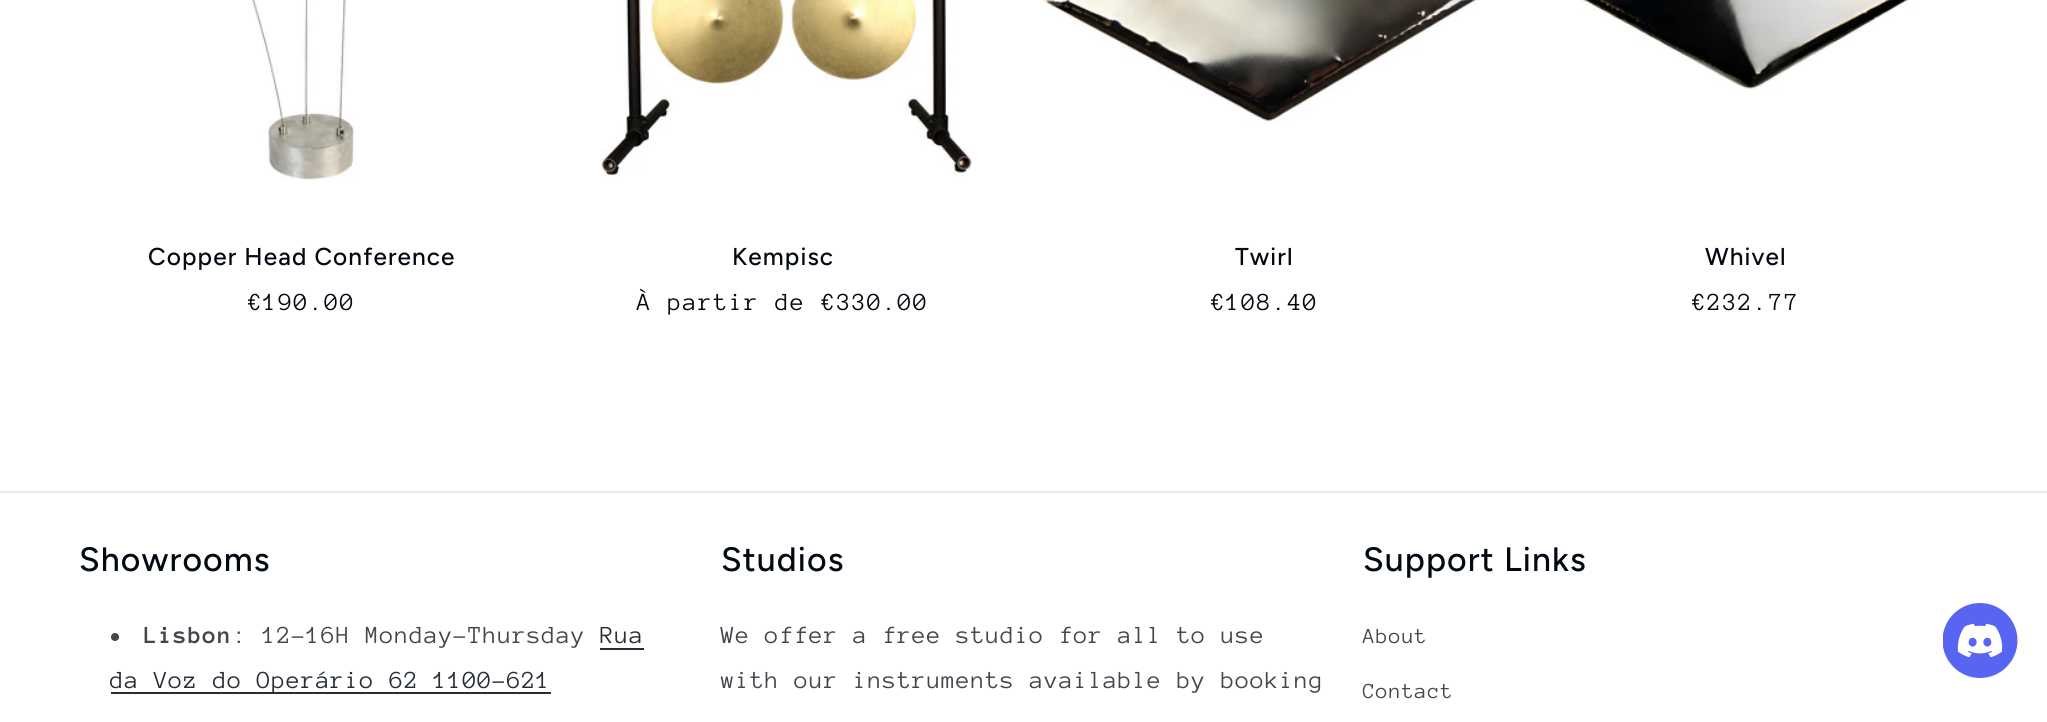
import math
import cairo

surface = cairo.ImageSurface(cairo.FORMAT_RGB24, 2047, 722)
ctx = cairo.Context(surface)
options = cairo.FontOptions()
options.set_hint_metrics(cairo.HINT_METRICS_OFF)
options.set_hint_style(cairo.HINT_STYLE_NONE)
ctx.set_font_options(options)
ctx.set_miter_limit(4)


def set_color(code):
    ctx.set_source_rgb(*(v / 255 for v in bytes.fromhex(code[-6:])))


def draw_spaced(x, y, s, letter, word):
    ctx.move_to(x, y)
    for ch in s:
        ctx.show_text(ch)
        ctx.rel_move_to(letter + word * (ch == ' '), 0)


def fill_rect(x, y, w, h, color):
    set_color(color)
    ctx.rectangle(x, y, w, h)
    ctx.fill()


def draw_image(path, x, y, w, h):
    ctx.save()
    ctx.set_source_surface(cairo.ImageSurface.create_from_png(path), x, y)
    ctx.rectangle(x, y, w, h)
    ctx.fill()
    ctx.restore()


set_color("#ffffff")
ctx.paint()
draw_image("assets/img1.png", 250, 0, 107, 180)
ctx.select_font_face("Figtree Medium")
ctx.set_font_size(24.4)
set_color("#020912")
draw_spaced(148, 265, "Copper Head Conference", 1.1, 0)
ctx.select_font_face("Anonymous Pro")
ctx.set_font_size(25.2)
draw_spaced(248, 310, "€190.00", 1.6, 0)
draw_image("assets/img2.png", 600, 0, 372, 177)
ctx.select_font_face("Figtree Medium")
ctx.set_font_size(24.4)
draw_spaced(732, 265, "Kempisc", 1.1, 0)
ctx.select_font_face("Anonymous Pro")
ctx.set_font_size(25.2)
draw_spaced(637, 310, "À partir de €330.00", 1.6, 0)
draw_image("assets/img3.png", 1043, 0, 435, 122)
ctx.select_font_face("Figtree Medium")
ctx.set_font_size(24.4)
draw_spaced(1235, 265, "Twirl", 1.1, 0)
ctx.select_font_face("Anonymous Pro")
ctx.set_font_size(25.2)
draw_spaced(1211, 310, "€108.40", 1.6, 0)
draw_image("assets/img4.png", 1579, 0, 335, 90)
ctx.select_font_face("Figtree Medium")
ctx.set_font_size(24.4)
draw_spaced(1705, 265, "Whivel", 1.1, 0)
ctx.select_font_face("Anonymous Pro")
ctx.set_font_size(25.2)
draw_spaced(1692, 310, "€232.77", 1.6, 0)
fill_rect(0, 491, 2047, 2, "#ebebec")
ctx.select_font_face("Figtree Medium")
ctx.set_font_size(33.75)
set_color("#020912")
draw_spaced(79, 571, "Showrooms", 1.1, 0)
set_color("#41474d")
ctx.new_path()
ctx.arc(115, 637, 4, 0, 2 * math.pi)
ctx.fill()
ctx.select_font_face("Anonymous Pro", cairo.FONT_SLANT_NORMAL, cairo.FONT_WEIGHT_BOLD)
ctx.set_font_size(25.2)
draw_spaced(144, 643, "Lisbon", 0.95, 0)
ctx.select_font_face("Anonymous Pro")
draw_spaced(233, 643, ": 12-16H Monday-Thursday", 0.95, 0)
set_color("#282e36")
draw_spaced(600, 643, "Rua", 0.95, 0)
fill_rect(600, 648, 44, 2, "#282e36")
fill_rect(111, 692, 440, 2, "#282e36")
draw_spaced(110, 688, "da Voz do Operário 62 1100-621", 0.95, 0)
ctx.select_font_face("Figtree Medium")
ctx.set_font_size(33.75)
set_color("#020912")
draw_spaced(721, 571, "Studios", 1.1, 0)
ctx.select_font_face("Anonymous Pro")
ctx.set_font_size(25.2)
set_color("#41474d")
draw_spaced(721, 643, "We offer a free studio for all to use", 0.95, 0)
draw_spaced(721, 688, "with our instruments available by booking", 0.95, 0)
ctx.select_font_face("Figtree Medium")
ctx.set_font_size(33.75)
set_color("#020912")
draw_spaced(1363, 571, "Support Links", 1.1, 0)
ctx.select_font_face("Anonymous Pro")
ctx.set_font_size(22)
set_color("#41474d")
draw_spaced(1363, 643, "About", 0.95, 0)
draw_spaced(1363, 698, "Contact", 0.95, 0)
draw_image("assets/img5.png", 1943, 603, 75, 75)
surface.write_to_png("output.png")
